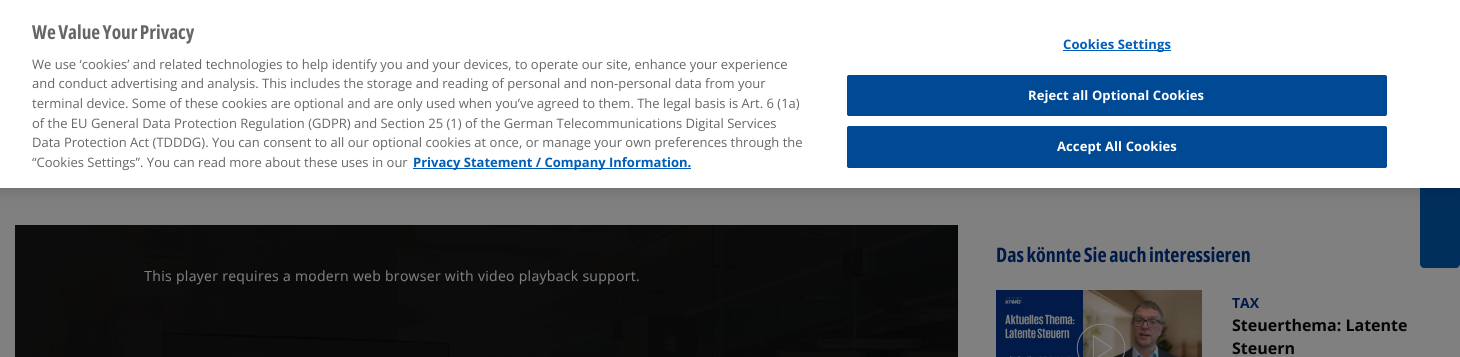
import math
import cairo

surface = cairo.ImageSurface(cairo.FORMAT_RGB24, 1460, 357)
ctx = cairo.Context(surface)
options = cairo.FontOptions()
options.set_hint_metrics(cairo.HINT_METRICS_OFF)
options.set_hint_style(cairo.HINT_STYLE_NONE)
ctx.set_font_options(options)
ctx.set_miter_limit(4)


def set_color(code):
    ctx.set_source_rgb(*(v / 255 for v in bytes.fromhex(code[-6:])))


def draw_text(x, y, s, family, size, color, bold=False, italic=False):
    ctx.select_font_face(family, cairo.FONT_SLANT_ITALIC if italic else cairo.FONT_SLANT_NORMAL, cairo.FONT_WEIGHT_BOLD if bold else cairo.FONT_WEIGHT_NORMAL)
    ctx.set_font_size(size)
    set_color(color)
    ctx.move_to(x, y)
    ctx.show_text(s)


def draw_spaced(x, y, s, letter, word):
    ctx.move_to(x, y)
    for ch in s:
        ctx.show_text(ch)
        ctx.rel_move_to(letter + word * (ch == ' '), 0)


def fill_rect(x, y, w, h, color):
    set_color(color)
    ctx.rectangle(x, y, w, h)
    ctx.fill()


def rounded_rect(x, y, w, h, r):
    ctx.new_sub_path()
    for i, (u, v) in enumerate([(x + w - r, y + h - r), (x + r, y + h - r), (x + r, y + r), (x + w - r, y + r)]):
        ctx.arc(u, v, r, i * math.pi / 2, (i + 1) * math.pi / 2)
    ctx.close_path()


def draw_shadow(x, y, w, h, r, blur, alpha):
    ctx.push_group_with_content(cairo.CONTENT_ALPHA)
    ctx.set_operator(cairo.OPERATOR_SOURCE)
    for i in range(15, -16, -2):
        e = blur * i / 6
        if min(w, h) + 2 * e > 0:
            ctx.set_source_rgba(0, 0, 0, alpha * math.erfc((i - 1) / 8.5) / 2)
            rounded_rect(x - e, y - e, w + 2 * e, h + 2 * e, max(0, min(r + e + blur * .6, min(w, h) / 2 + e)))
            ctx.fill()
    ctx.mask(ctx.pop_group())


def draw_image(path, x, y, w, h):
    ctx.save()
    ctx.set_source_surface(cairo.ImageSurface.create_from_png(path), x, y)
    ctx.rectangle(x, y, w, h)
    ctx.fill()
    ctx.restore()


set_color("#808080")
ctx.paint()
set_color("#002f5c")
ctx.new_path()
ctx.move_to(1420, 263)
ctx.line_to(1420, 120)
ctx.curve_to(1420, 117, 1422, 115, 1425, 115)
ctx.line_to(1455, 115)
ctx.curve_to(1458, 115, 1460, 117, 1460, 120)
ctx.line_to(1460, 263)
ctx.curve_to(1460, 266, 1458, 268, 1455, 268)
ctx.line_to(1425, 268)
ctx.curve_to(1422, 268, 1420, 266, 1420, 263)
ctx.close_path()
ctx.fill()
ctx.new_path()
ctx.move_to(1421, 263)
ctx.line_to(1421, 120)
ctx.curve_to(1421, 118, 1423, 116, 1425, 116)
ctx.line_to(1455, 116)
ctx.curve_to(1457, 116, 1459, 118, 1459, 120)
ctx.line_to(1459, 263)
ctx.curve_to(1459, 265, 1457, 267, 1455, 267)
ctx.line_to(1425, 267)
ctx.curve_to(1423, 267, 1421, 265, 1421, 263)
ctx.close_path()
ctx.stroke()
set_color("#000000")
draw_shadow(0, 0, 1460, 188, 0, 9, 0.2)
fill_rect(0, 0, 1460, 188, "#ffffff")
ctx.select_font_face("Open Sans", cairo.FONT_SLANT_NORMAL, cairo.FONT_WEIGHT_BOLD)
ctx.set_font_size(19.25)
set_color("#666666")
draw_spaced(32, 39, "We Value Your Privacy", 0, -1)
draw_text(32, 69, "We use ‘cookies’ and related technologies to help identify you and your devices, to operate our site, enhance your experience", "Open Sans", 13, "#666666")
draw_text(32, 88, "and conduct advertising and analysis. This includes the storage and reading of personal and non-personal data from your", "Open Sans", 13, "#666666")
draw_text(32, 108, "terminal device. Some of these cookies are optional and are only used when you’ve agreed to them. The legal basis is Art. 6 (1a)", "Open Sans", 13, "#666666")
draw_text(32, 128, "of the EU General Data Protection Regulation (GDPR) and Section 25 (1) of the German Telecommunications Digital Services", "Open Sans", 13, "#666666")
draw_text(32, 147, "Data Protection Act (TDDDG). You can consent to all our optional cookies at once, or manage your own preferences through the", "Open Sans", 13, "#666666")
draw_text(32, 167, "“Cookies Settings”. You can read more about these uses in our", "Open Sans", 13, "#666666")
fill_rect(413, 168, 278, 1, "#005eb8")
draw_text(413, 167, "Privacy Statement / Company Information.", "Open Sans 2", 13, "#005eb8", bold=True)
fill_rect(1063, 50, 108, 1, "#005eb8")
draw_spaced(1063, 49, "Cookies Settings", 0.1, 0)
set_color("#004a95")
rounded_rect(847.5, 75.5, 539, 40, 1.5)
ctx.fill_preserve()
ctx.set_line_width(1)
ctx.stroke()
set_color("#ffffff")
draw_spaced(1028, 100, "Reject all Optional Cookies", 0.1, 0)
set_color("#004a95")
rounded_rect(847.5, 126.5, 539, 41, 1.5)
ctx.fill_preserve()
ctx.stroke()
set_color("#ffffff")
draw_spaced(1057, 151, "Accept All Cookies", 0.1, 0)
draw_image("assets/img1.png", 15, 225, 943, 132)
ctx.select_font_face("Open Sans", cairo.FONT_SLANT_NORMAL, cairo.FONT_WEIGHT_BOLD)
ctx.set_font_size(20)
set_color("#001a47")
draw_spaced(996, 262, "Das könnte Sie auch interessieren", 0, -1)
draw_image("assets/img2.png", 996, 290, 206, 67)
draw_image("assets/img3.png", 1076, 323, 50, 34)
draw_text(1232, 308, "TAX", "Open Sans 2", 14, "#001a47", bold=True)
draw_text(1232, 331, "Steuerthema: Latente", "Open Sans 2", 16, "#050505", bold=True)
draw_text(1232, 354, "Steuern", "Open Sans 2", 16, "#050505", bold=True)
surface.write_to_png("output.png")
